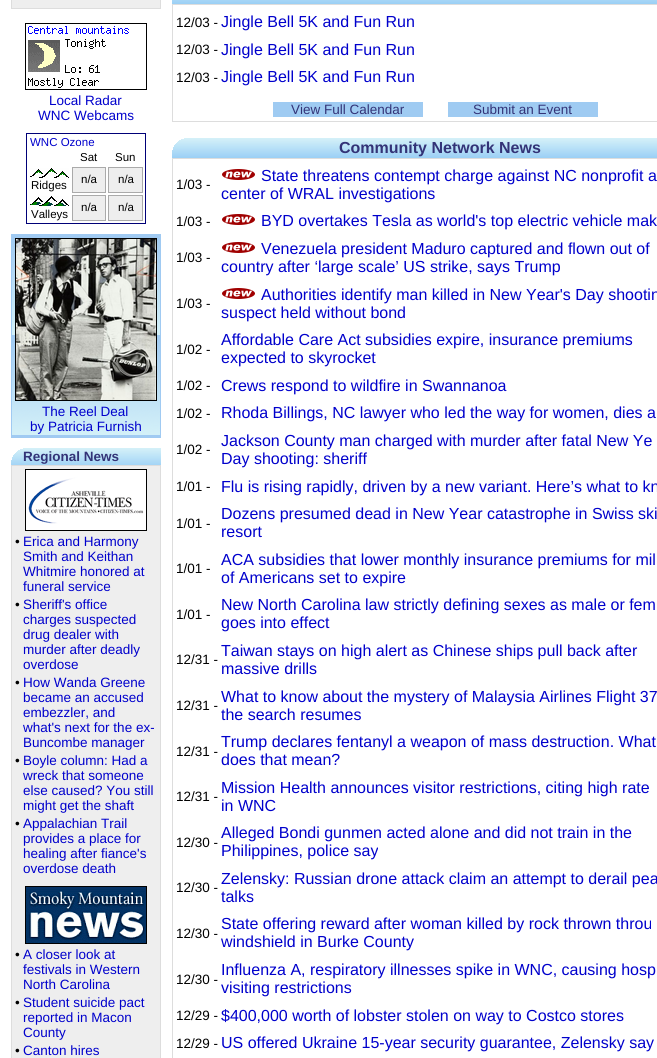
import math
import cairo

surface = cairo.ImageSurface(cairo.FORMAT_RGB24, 657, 1058)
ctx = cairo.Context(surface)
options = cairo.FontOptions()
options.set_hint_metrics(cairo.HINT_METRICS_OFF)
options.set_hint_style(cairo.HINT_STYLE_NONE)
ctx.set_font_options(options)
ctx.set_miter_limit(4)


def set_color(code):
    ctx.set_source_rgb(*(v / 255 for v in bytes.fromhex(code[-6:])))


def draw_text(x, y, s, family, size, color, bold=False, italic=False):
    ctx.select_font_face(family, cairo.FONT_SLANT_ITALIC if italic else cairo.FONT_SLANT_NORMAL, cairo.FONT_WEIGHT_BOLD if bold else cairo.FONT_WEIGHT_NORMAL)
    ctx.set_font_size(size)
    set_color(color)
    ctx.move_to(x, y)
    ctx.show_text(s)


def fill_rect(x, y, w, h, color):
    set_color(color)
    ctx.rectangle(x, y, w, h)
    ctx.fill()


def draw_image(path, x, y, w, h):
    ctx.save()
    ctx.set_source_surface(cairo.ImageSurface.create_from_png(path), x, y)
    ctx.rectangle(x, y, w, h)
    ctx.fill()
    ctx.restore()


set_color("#ffffff")
ctx.paint()
set_color("#eeeeee")
ctx.rectangle(11.5, -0.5, 149, 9)
ctx.fill_preserve()
set_color("#dddddd")
ctx.set_line_width(1)
ctx.stroke()
ctx.rectangle(25.5, 23.5, 121, 66)
set_color("#000000")
ctx.stroke()
draw_image("assets/img1.png", 28, 26, 101, 62)
draw_text(49, 105, "Local Radar", "Liberation Sans", 13.5, "#0000cc")
draw_text(38, 120, "WNC Webcams", "Liberation Sans", 13.5, "#0000cc")
ctx.rectangle(26.5, 133.5, 119, 90)
set_color("#000077")
ctx.stroke()
draw_text(30, 146, "WNC Ozone", "Liberation Sans", 11.5, "#0000cc")
draw_text(80, 161, "Sat", "Liberation Sans", 11.5, "#000000")
draw_text(115, 161, "Sun", "Liberation Sans", 11.5, "#000000")
set_color("#eeeeee")
ctx.rectangle(72.5, 167.5, 33, 25)
ctx.fill_preserve()
set_color("#aaaaaa")
ctx.stroke()
draw_text(81, 183, "n/a", "Liberation Sans", 11.5, "#000000")
set_color("#eeeeee")
ctx.rectangle(108.5, 167.5, 34, 25)
ctx.fill_preserve()
set_color("#aaaaaa")
ctx.stroke()
draw_text(118, 183, "n/a", "Liberation Sans", 11.5, "#000000")
draw_image("assets/img2.png", 30, 168, 39, 10)
draw_text(31, 189, "Ridges", "Liberation Sans", 11.5, "#000000")
set_color("#eeeeee")
ctx.rectangle(72.5, 195.5, 33, 25)
ctx.fill_preserve()
set_color("#aaaaaa")
ctx.stroke()
draw_text(81, 211, "n/a", "Liberation Sans", 11.5, "#000000")
set_color("#eeeeee")
ctx.rectangle(108.5, 195.5, 34, 25)
ctx.fill_preserve()
set_color("#aaaaaa")
ctx.stroke()
draw_text(118, 211, "n/a", "Liberation Sans", 11.5, "#000000")
draw_image("assets/img3.png", 30, 196, 39, 10)
draw_text(31, 218, "Valleys", "Liberation Sans", 11.5, "#000000")
draw_image("assets/img4.png", 12, 235, 148, 202)
ctx.rectangle(11.5, 234.5, 149, 203)
set_color("#a0caf2")
ctx.stroke()
ctx.rectangle(15.5, 238.5, 141, 162)
set_color("#000000")
ctx.stroke()
draw_image("assets/img5.png", 16, 239, 140, 161)
draw_text(42, 416, "The Reel Deal", "Liberation Sans", 13.5, "#0000cc")
draw_text(30, 431, "by Patricia Furnish", "Liberation Sans", 13.5, "#0000cc")
draw_image("assets/img6.png", 11, 449, 12, 16)
draw_image("assets/img7.png", 23, 448, 138, 17)
draw_text(23, 461, "Regional News", "Liberation Sans", 13.5, "#333377", bold=True)
set_color("#eeeeee")
ctx.rectangle(11.5, 465.5, 149, 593)
ctx.fill_preserve()
set_color("#dddddd")
ctx.stroke()
ctx.rectangle(25.5, 469.5, 121, 61)
set_color("#000000")
ctx.stroke()
draw_image("assets/img8.png", 26, 470, 120, 60)
draw_text(15, 546, "•", "Liberation Sans", 13.5, "#000000")
draw_text(23, 546, "Erica and Harmony", "Liberation Sans", 13.5, "#0000cc")
draw_text(23, 561, "Smith and Keithan", "Liberation Sans", 13.5, "#0000cc")
draw_text(23, 576, "Whitmire honored at", "Liberation Sans", 13.5, "#0000cc")
draw_text(23, 591, "funeral service", "Liberation Sans", 13.5, "#0000cc")
draw_text(15, 609, "•", "Liberation Sans", 13.5, "#000000")
draw_text(23, 609, "Sheriff's office", "Liberation Sans", 13.5, "#0000cc")
draw_text(23, 624, "charges suspected", "Liberation Sans", 13.5, "#0000cc")
draw_text(23, 639, "drug dealer with", "Liberation Sans", 13.5, "#0000cc")
draw_text(23, 654, "murder after deadly", "Liberation Sans", 13.5, "#0000cc")
draw_text(23, 669, "overdose", "Liberation Sans", 13.5, "#0000cc")
draw_text(15, 687, "•", "Liberation Sans", 13.5, "#000000")
draw_text(23, 687, "How Wanda Greene", "Liberation Sans", 13.5, "#0000cc")
draw_text(23, 702, "became an accused", "Liberation Sans", 13.5, "#0000cc")
draw_text(23, 717, "embezzler, and", "Liberation Sans", 13.5, "#0000cc")
draw_text(23, 732, "what's next for the ex-", "Liberation Sans", 13.5, "#0000cc")
draw_text(23, 747, "Buncombe manager", "Liberation Sans", 13.5, "#0000cc")
draw_text(15, 765, "•", "Liberation Sans", 13.5, "#000000")
draw_text(23, 765, "Boyle column: Had a", "Liberation Sans", 13.5, "#0000cc")
draw_text(23, 780, "wreck that someone", "Liberation Sans", 13.5, "#0000cc")
draw_text(23, 795, "else caused? You still", "Liberation Sans", 13.5, "#0000cc")
draw_text(23, 810, "might get the shaft", "Liberation Sans", 13.5, "#0000cc")
draw_text(15, 828, "•", "Liberation Sans", 13.5, "#000000")
draw_text(23, 828, "Appalachian Trail", "Liberation Sans", 13.5, "#0000cc")
draw_text(23, 843, "provides a place for", "Liberation Sans", 13.5, "#0000cc")
draw_text(23, 858, "healing after fiance's", "Liberation Sans", 13.5, "#0000cc")
draw_text(23, 873, "overdose death", "Liberation Sans", 13.5, "#0000cc")
ctx.rectangle(25.5, 886.5, 121, 57)
set_color("#000000")
ctx.stroke()
draw_image("assets/img9.png", 26, 887, 120, 56)
draw_text(15, 959, "•", "Liberation Sans", 13.5, "#000000")
draw_text(23, 959, "A closer look at", "Liberation Sans", 13.5, "#0000cc")
draw_text(23, 974, "festivals in Western", "Liberation Sans", 13.5, "#0000cc")
draw_text(23, 989, "North Carolina", "Liberation Sans", 13.5, "#0000cc")
draw_text(15, 1007, "•", "Liberation Sans", 13.5, "#000000")
draw_text(23, 1007, "Student suicide pact", "Liberation Sans", 13.5, "#0000cc")
draw_text(23, 1022, "reported in Macon", "Liberation Sans", 13.5, "#0000cc")
draw_text(23, 1037, "County", "Liberation Sans", 13.5, "#0000cc")
draw_text(15, 1055, "•", "Liberation Sans", 13.5, "#000000")
draw_text(23, 1055, "Canton hires", "Liberation Sans", 13.5, "#0000cc")
draw_image("assets/img10.png", 172, 0, 12, 4)
draw_image("assets/img11.png", 184, 0, 473, 4)
ctx.rectangle(172.5, 4.5, 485, 117)
set_color("#dddddd")
ctx.stroke()
draw_text(176, 27, "12/03 -", "Liberation Sans", 13.5, "#000000")
draw_text(221, 27, "Jingle Bell 5K and Fun Run", "Liberation Sans", 16, "#0000cc")
draw_text(176, 54, "12/03 -", "Liberation Sans", 13.5, "#000000")
draw_text(221, 55, "Jingle Bell 5K and Fun Run", "Liberation Sans", 16, "#0000cc")
draw_text(176, 82, "12/03 -", "Liberation Sans", 13.5, "#000000")
draw_text(221, 82, "Jingle Bell 5K and Fun Run", "Liberation Sans", 16, "#0000cc")
fill_rect(273, 102, 150, 15, "#9fcbf2")
draw_text(291, 114, "View Full Calendar", "Liberation Sans", 13.5, "#333377")
fill_rect(448, 102, 150, 15, "#9fcbf2")
draw_text(473, 114, "Submit an Event", "Liberation Sans", 13.5, "#333377")
draw_image("assets/img12.png", 172, 139, 12, 19)
draw_image("assets/img13.png", 184, 138, 473, 20)
draw_text(339, 153, "Community Network News", "Liberation Sans", 16, "#333377", bold=True)
ctx.rectangle(172.5, 158.5, 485, 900)
set_color("#dddddd")
ctx.stroke()
draw_text(176, 189, "1/03 -", "Liberation Sans", 13.5, "#000000")
draw_image("assets/img14.png", 222, 169, 33, 11)
draw_text(261, 181, "State threatens contempt charge against NC nonprofit a", "Liberation Sans", 16, "#0000cc")
draw_text(221, 199, "center of WRAL investigations", "Liberation Sans", 16, "#0000cc")
draw_text(176, 226, "1/03 -", "Liberation Sans", 13.5, "#000000")
draw_image("assets/img14.png", 222, 214, 33, 11)
draw_text(261, 226, "BYD overtakes Tesla as world's top electric vehicle mak", "Liberation Sans", 16, "#0000cc")
draw_text(176, 262, "1/03 -", "Liberation Sans", 13.5, "#000000")
draw_image("assets/img14.png", 222, 242, 33, 11)
draw_text(261, 254, "Venezuela president Maduro captured and flown out of", "Liberation Sans", 16, "#0000cc")
draw_text(221, 272, "country after ‘large scale’ US strike, says Trump", "Liberation Sans", 16, "#0000cc")
draw_text(176, 308, "1/03 -", "Liberation Sans", 13.5, "#000000")
draw_image("assets/img14.png", 222, 288, 33, 11)
draw_text(261, 300, "Authorities identify man killed in New Year's Day shootin", "Liberation Sans", 16, "#0000cc")
draw_text(221, 318, "suspect held without bond", "Liberation Sans", 16, "#0000cc")
draw_text(176, 354, "1/02 -", "Liberation Sans", 13.5, "#000000")
draw_text(221, 345, "Affordable Care Act subsidies expire, insurance premiums", "Liberation Sans", 16, "#0000cc")
draw_text(221, 363, "expected to skyrocket", "Liberation Sans", 16, "#0000cc")
draw_text(176, 390, "1/02 -", "Liberation Sans", 13.5, "#000000")
draw_text(221, 391, "Crews respond to wildfire in Swannanoa", "Liberation Sans", 16, "#0000cc")
draw_text(176, 418, "1/02 -", "Liberation Sans", 13.5, "#000000")
draw_text(221, 418, "Rhoda Billings, NC lawyer who led the way for women, dies a", "Liberation Sans", 16, "#0000cc")
draw_text(176, 454, "1/02 -", "Liberation Sans", 13.5, "#000000")
draw_text(221, 446, "Jackson County man charged with murder after fatal New Ye", "Liberation Sans", 16, "#0000cc")
draw_text(221, 464, "Day shooting: sheriff", "Liberation Sans", 16, "#0000cc")
draw_text(176, 491, "1/01 -", "Liberation Sans", 13.5, "#000000")
draw_text(221, 492, "Flu is rising rapidly, driven by a new variant. Here’s what to kn", "Liberation Sans", 16, "#0000cc")
draw_text(176, 528, "1/01 -", "Liberation Sans", 13.5, "#000000")
draw_text(221, 519, "Dozens presumed dead in New Year catastrophe in Swiss ski", "Liberation Sans", 16, "#0000cc")
draw_text(221, 537, "resort", "Liberation Sans", 16, "#0000cc")
draw_text(176, 573, "1/01 -", "Liberation Sans", 13.5, "#000000")
draw_text(221, 565, "ACA subsidies that lower monthly insurance premiums for mil", "Liberation Sans", 16, "#0000cc")
draw_text(221, 583, "of Americans set to expire", "Liberation Sans", 16, "#0000cc")
draw_text(176, 619, "1/01 -", "Liberation Sans", 13.5, "#000000")
draw_text(221, 610, "New North Carolina law strictly defining sexes as male or fem", "Liberation Sans", 16, "#0000cc")
draw_text(221, 628, "goes into effect", "Liberation Sans", 16, "#0000cc")
draw_text(176, 664, "12/31 -", "Liberation Sans", 13.5, "#000000")
draw_text(221, 656, "Taiwan stays on high alert as Chinese ships pull back after", "Liberation Sans", 16, "#0000cc")
draw_text(221, 674, "massive drills", "Liberation Sans", 16, "#0000cc")
draw_text(176, 710, "12/31 -", "Liberation Sans", 13.5, "#000000")
draw_text(221, 702, "What to know about the mystery of Malaysia Airlines Flight 37", "Liberation Sans", 16, "#0000cc")
draw_text(221, 720, "the search resumes", "Liberation Sans", 16, "#0000cc")
draw_text(176, 756, "12/31 -", "Liberation Sans", 13.5, "#000000")
draw_text(221, 747, "Trump declares fentanyl a weapon of mass destruction. What", "Liberation Sans", 16, "#0000cc")
draw_text(221, 765, "does that mean?", "Liberation Sans", 16, "#0000cc")
draw_text(176, 801, "12/31 -", "Liberation Sans", 13.5, "#000000")
draw_text(221, 793, "Mission Health announces visitor restrictions, citing high rate", "Liberation Sans", 16, "#0000cc")
draw_text(221, 811, "in WNC", "Liberation Sans", 16, "#0000cc")
draw_text(176, 847, "12/30 -", "Liberation Sans", 13.5, "#000000")
draw_text(221, 838, "Alleged Bondi gunmen acted alone and did not train in the", "Liberation Sans", 16, "#0000cc")
draw_text(221, 856, "Philippines, police say", "Liberation Sans", 16, "#0000cc")
draw_text(176, 892, "12/30 -", "Liberation Sans", 13.5, "#000000")
draw_text(221, 884, "Zelensky: Russian drone attack claim an attempt to derail pea", "Liberation Sans", 16, "#0000cc")
draw_text(221, 902, "talks", "Liberation Sans", 16, "#0000cc")
draw_text(176, 938, "12/30 -", "Liberation Sans", 13.5, "#000000")
draw_text(221, 929, "State offering reward after woman killed by rock thrown throu", "Liberation Sans", 16, "#0000cc")
draw_text(221, 947, "windshield in Burke County", "Liberation Sans", 16, "#0000cc")
draw_text(176, 984, "12/30 -", "Liberation Sans", 13.5, "#000000")
draw_text(221, 975, "Influenza A, respiratory illnesses spike in WNC, causing hosp", "Liberation Sans", 16, "#0000cc")
draw_text(221, 993, "visiting restrictions", "Liberation Sans", 16, "#0000cc")
draw_text(176, 1020, "12/29 -", "Liberation Sans", 13.5, "#000000")
draw_text(221, 1021, "$400,000 worth of lobster stolen on way to Costco stores", "Liberation Sans", 16, "#0000cc")
draw_text(176, 1048, "12/29 -", "Liberation Sans", 13.5, "#000000")
draw_text(221, 1048, "US offered Ukraine 15-year security guarantee, Zelensky say", "Liberation Sans", 16, "#0000cc")
surface.write_to_png("output.png")
